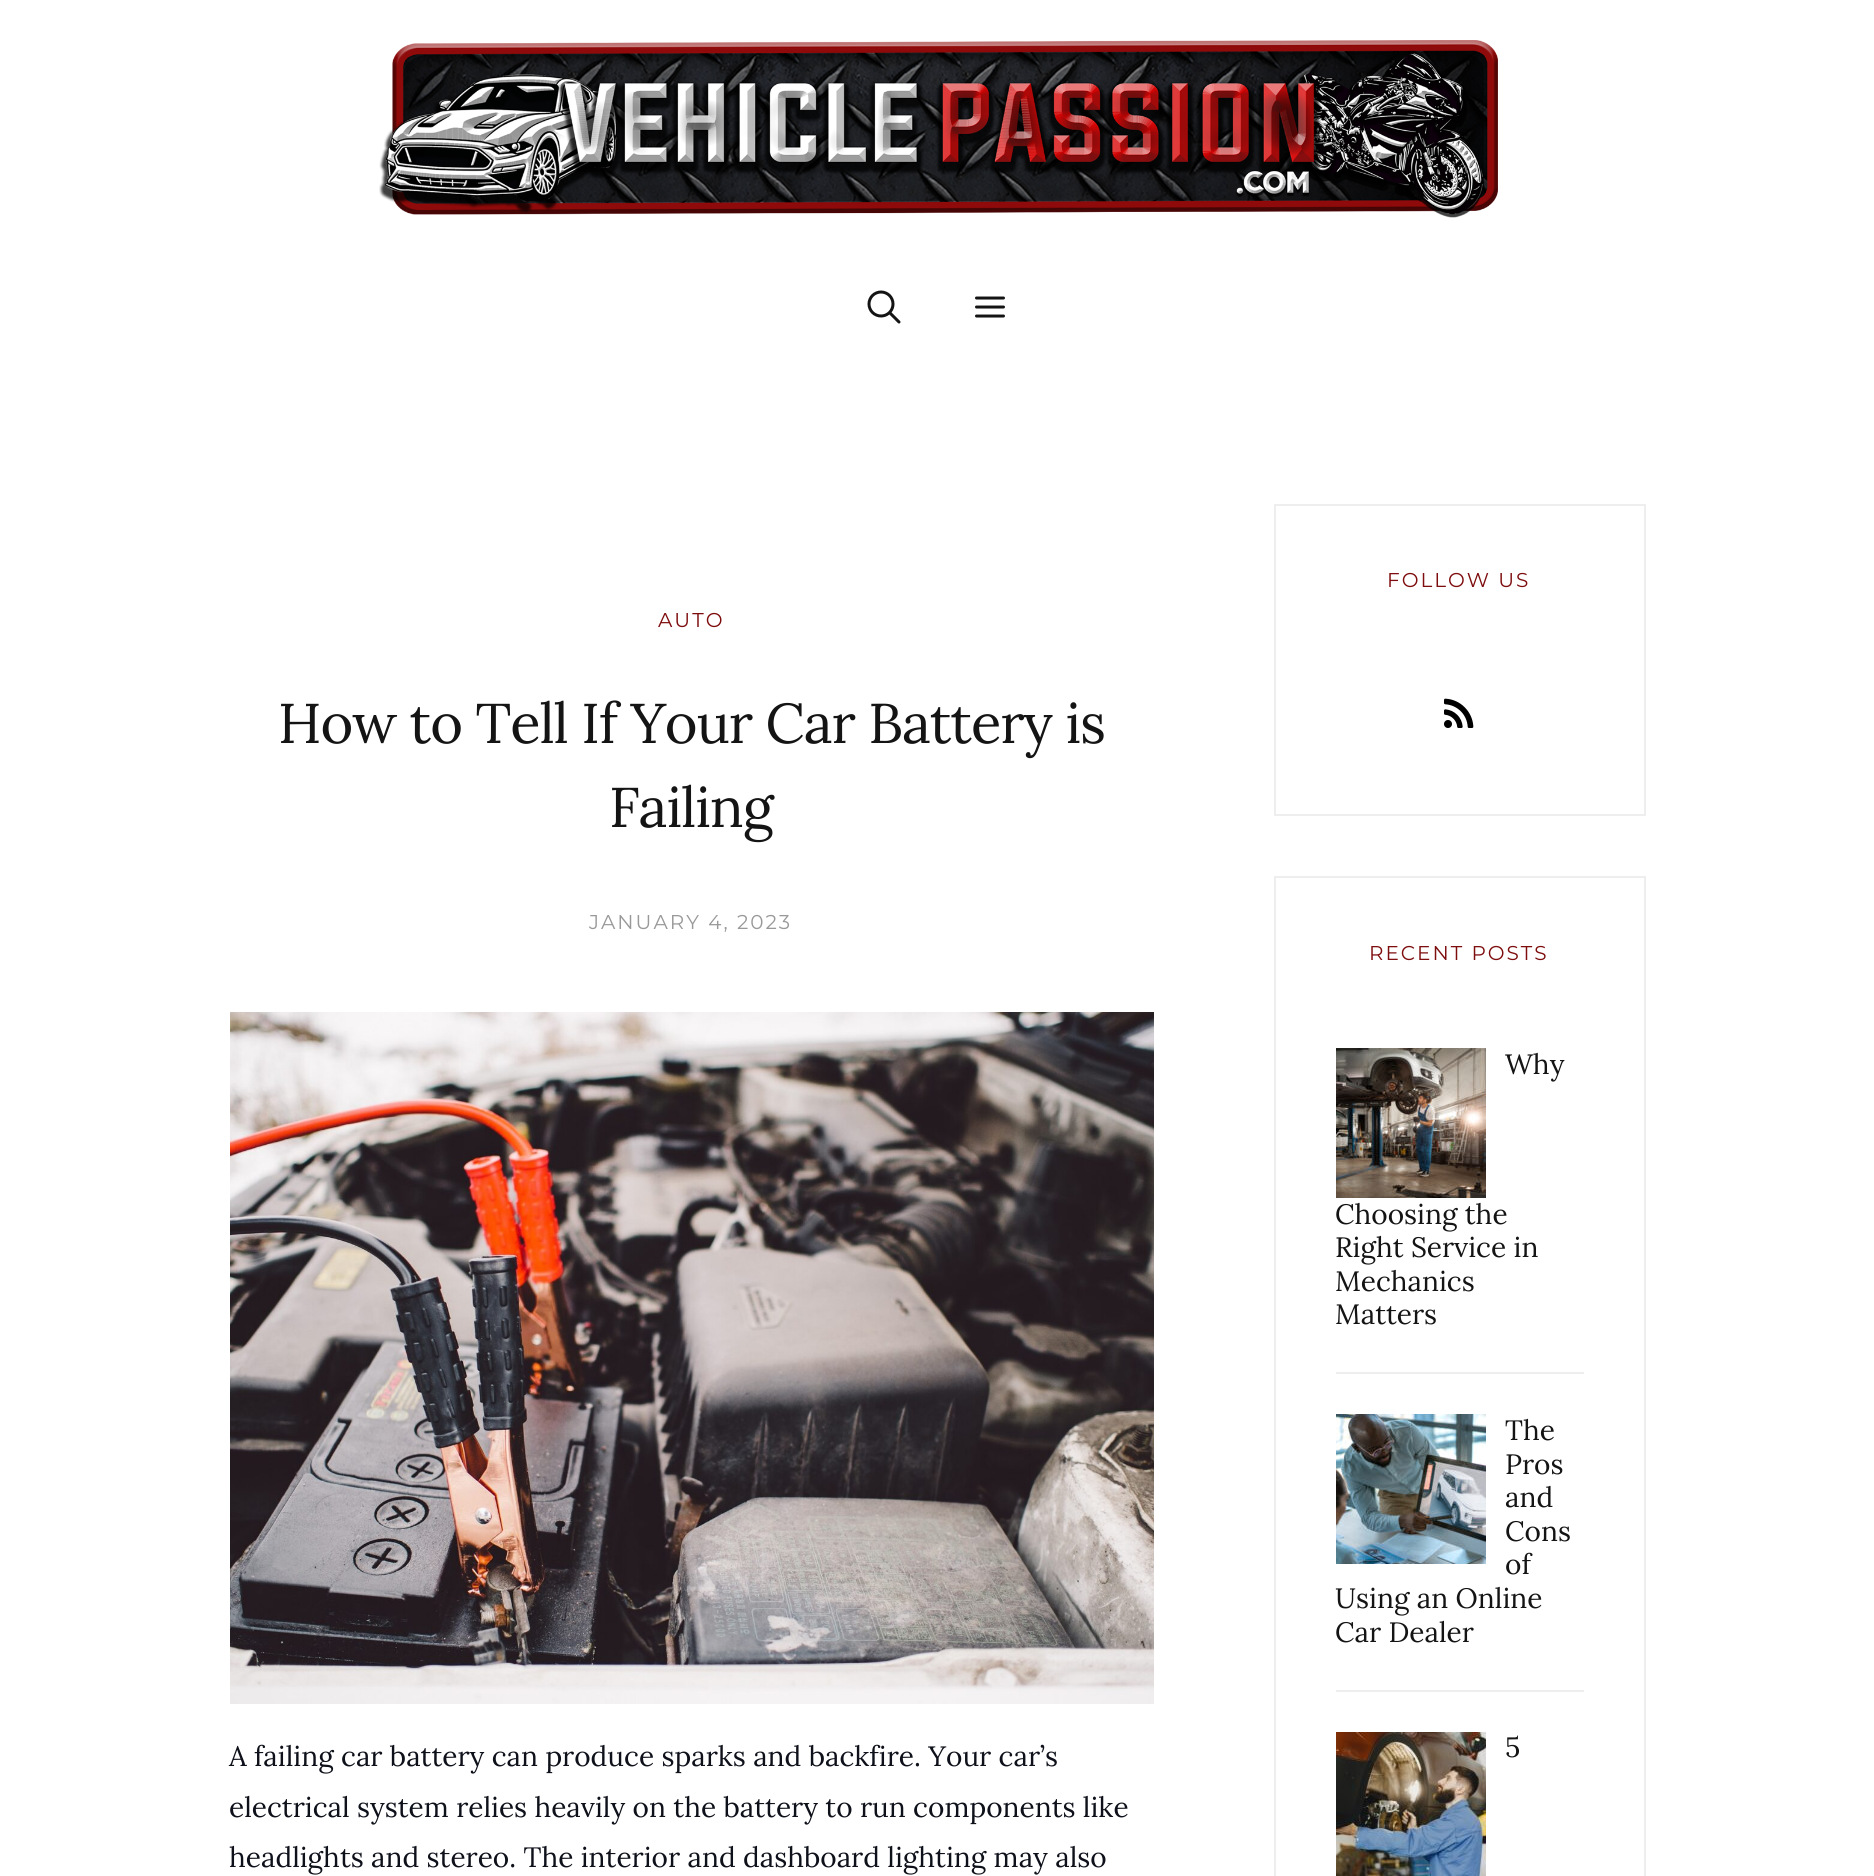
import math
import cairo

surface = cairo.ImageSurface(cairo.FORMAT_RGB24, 1874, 1876)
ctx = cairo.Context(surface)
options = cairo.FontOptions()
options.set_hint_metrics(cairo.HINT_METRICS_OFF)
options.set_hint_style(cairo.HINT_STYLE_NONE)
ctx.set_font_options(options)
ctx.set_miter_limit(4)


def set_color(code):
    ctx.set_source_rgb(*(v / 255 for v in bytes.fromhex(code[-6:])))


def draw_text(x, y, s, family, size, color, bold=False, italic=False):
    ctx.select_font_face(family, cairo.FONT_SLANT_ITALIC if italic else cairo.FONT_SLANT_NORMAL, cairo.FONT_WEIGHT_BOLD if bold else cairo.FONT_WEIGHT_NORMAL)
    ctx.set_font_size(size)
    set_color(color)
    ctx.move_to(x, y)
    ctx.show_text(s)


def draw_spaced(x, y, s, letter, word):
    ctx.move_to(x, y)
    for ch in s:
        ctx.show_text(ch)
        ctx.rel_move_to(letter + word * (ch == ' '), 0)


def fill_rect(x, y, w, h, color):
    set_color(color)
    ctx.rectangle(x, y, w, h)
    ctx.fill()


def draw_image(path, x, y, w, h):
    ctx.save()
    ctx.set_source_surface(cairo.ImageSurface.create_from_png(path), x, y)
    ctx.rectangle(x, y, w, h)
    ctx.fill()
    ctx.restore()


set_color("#ffffff")
ctx.paint()
draw_image("assets/img1.png", 379, 40, 1119, 178)
draw_image("assets/img2.png", 867, 290, 34, 34)
draw_image("assets/img3.png", 975, 296, 30, 22)
ctx.select_font_face("Montserrat")
ctx.set_font_size(20)
set_color("#7e0d0e")
draw_spaced(658, 627, "AUTO", 2, 0)
ctx.select_font_face("Lora")
ctx.set_font_size(56)
set_color("#141414")
draw_spaced(278, 743, "How to Tell If Your Car Battery is", -1.1, 0)
draw_spaced(609, 827, "Failing", -1.1, 0)
ctx.select_font_face("Montserrat")
ctx.set_font_size(20)
set_color("#999999")
draw_spaced(589, 929, "JANUARY 4, 2023", 2, 0)
draw_image("assets/img4.png", 230, 1012, 924, 692)
draw_text(229, 1766, "A failing car battery can produce sparks and backfire. Your car’s", "Lora", 28, "#0e101a")
draw_text(229, 1817, "electrical system relies heavily on the battery to run components like", "Lora", 28, "#0e101a")
draw_text(229, 1867, "headlights and stereo. The interior and dashboard lighting may also", "Lora", 28, "#0e101a")
ctx.rectangle(1275, 505, 370, 310)
set_color("#eeeeee")
ctx.stroke()
ctx.select_font_face("Montserrat")
ctx.set_font_size(20)
set_color("#7e0d0e")
draw_spaced(1387, 587, "FOLLOW US", 2, 0)
draw_image("assets/img5.png", 1444, 698, 30, 30)
ctx.rectangle(1275, 877, 370, 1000)
set_color("#eeeeee")
ctx.stroke()
set_color("#7e0d0e")
draw_spaced(1369, 960, "RECENT POSTS", 2, 0)
draw_image("assets/img6.png", 1336, 1048, 150, 150)
draw_text(1505, 1074, "Why", "Lora", 28, "#141414")
draw_text(1335, 1224, "Choosing the", "Lora", 28, "#141414")
draw_text(1335, 1257, "Right Service in", "Lora", 28, "#141414")
draw_text(1335, 1291, "Mechanics", "Lora", 28, "#141414")
draw_text(1335, 1324, "Matters", "Lora", 28, "#141414")
fill_rect(1336, 1372, 248, 2, "#eeeeee")
draw_image("assets/img7.png", 1336, 1414, 150, 150)
draw_text(1505, 1440, "The", "Lora", 28, "#141414")
draw_text(1505, 1474, "Pros", "Lora", 28, "#141414")
draw_text(1505, 1507, "and", "Lora", 28, "#141414")
draw_text(1505, 1541, "Cons", "Lora", 28, "#141414")
draw_text(1505, 1574, "of", "Lora", 28, "#141414")
draw_text(1335, 1608, "Using an Online", "Lora", 28, "#141414")
draw_text(1335, 1642, "Car Dealer", "Lora", 28, "#141414")
fill_rect(1336, 1690, 248, 2, "#eeeeee")
draw_image("assets/img8.png", 1336, 1732, 150, 144)
draw_text(1505, 1757, "5", "Lora", 28, "#141414")
surface.write_to_png("output.png")
